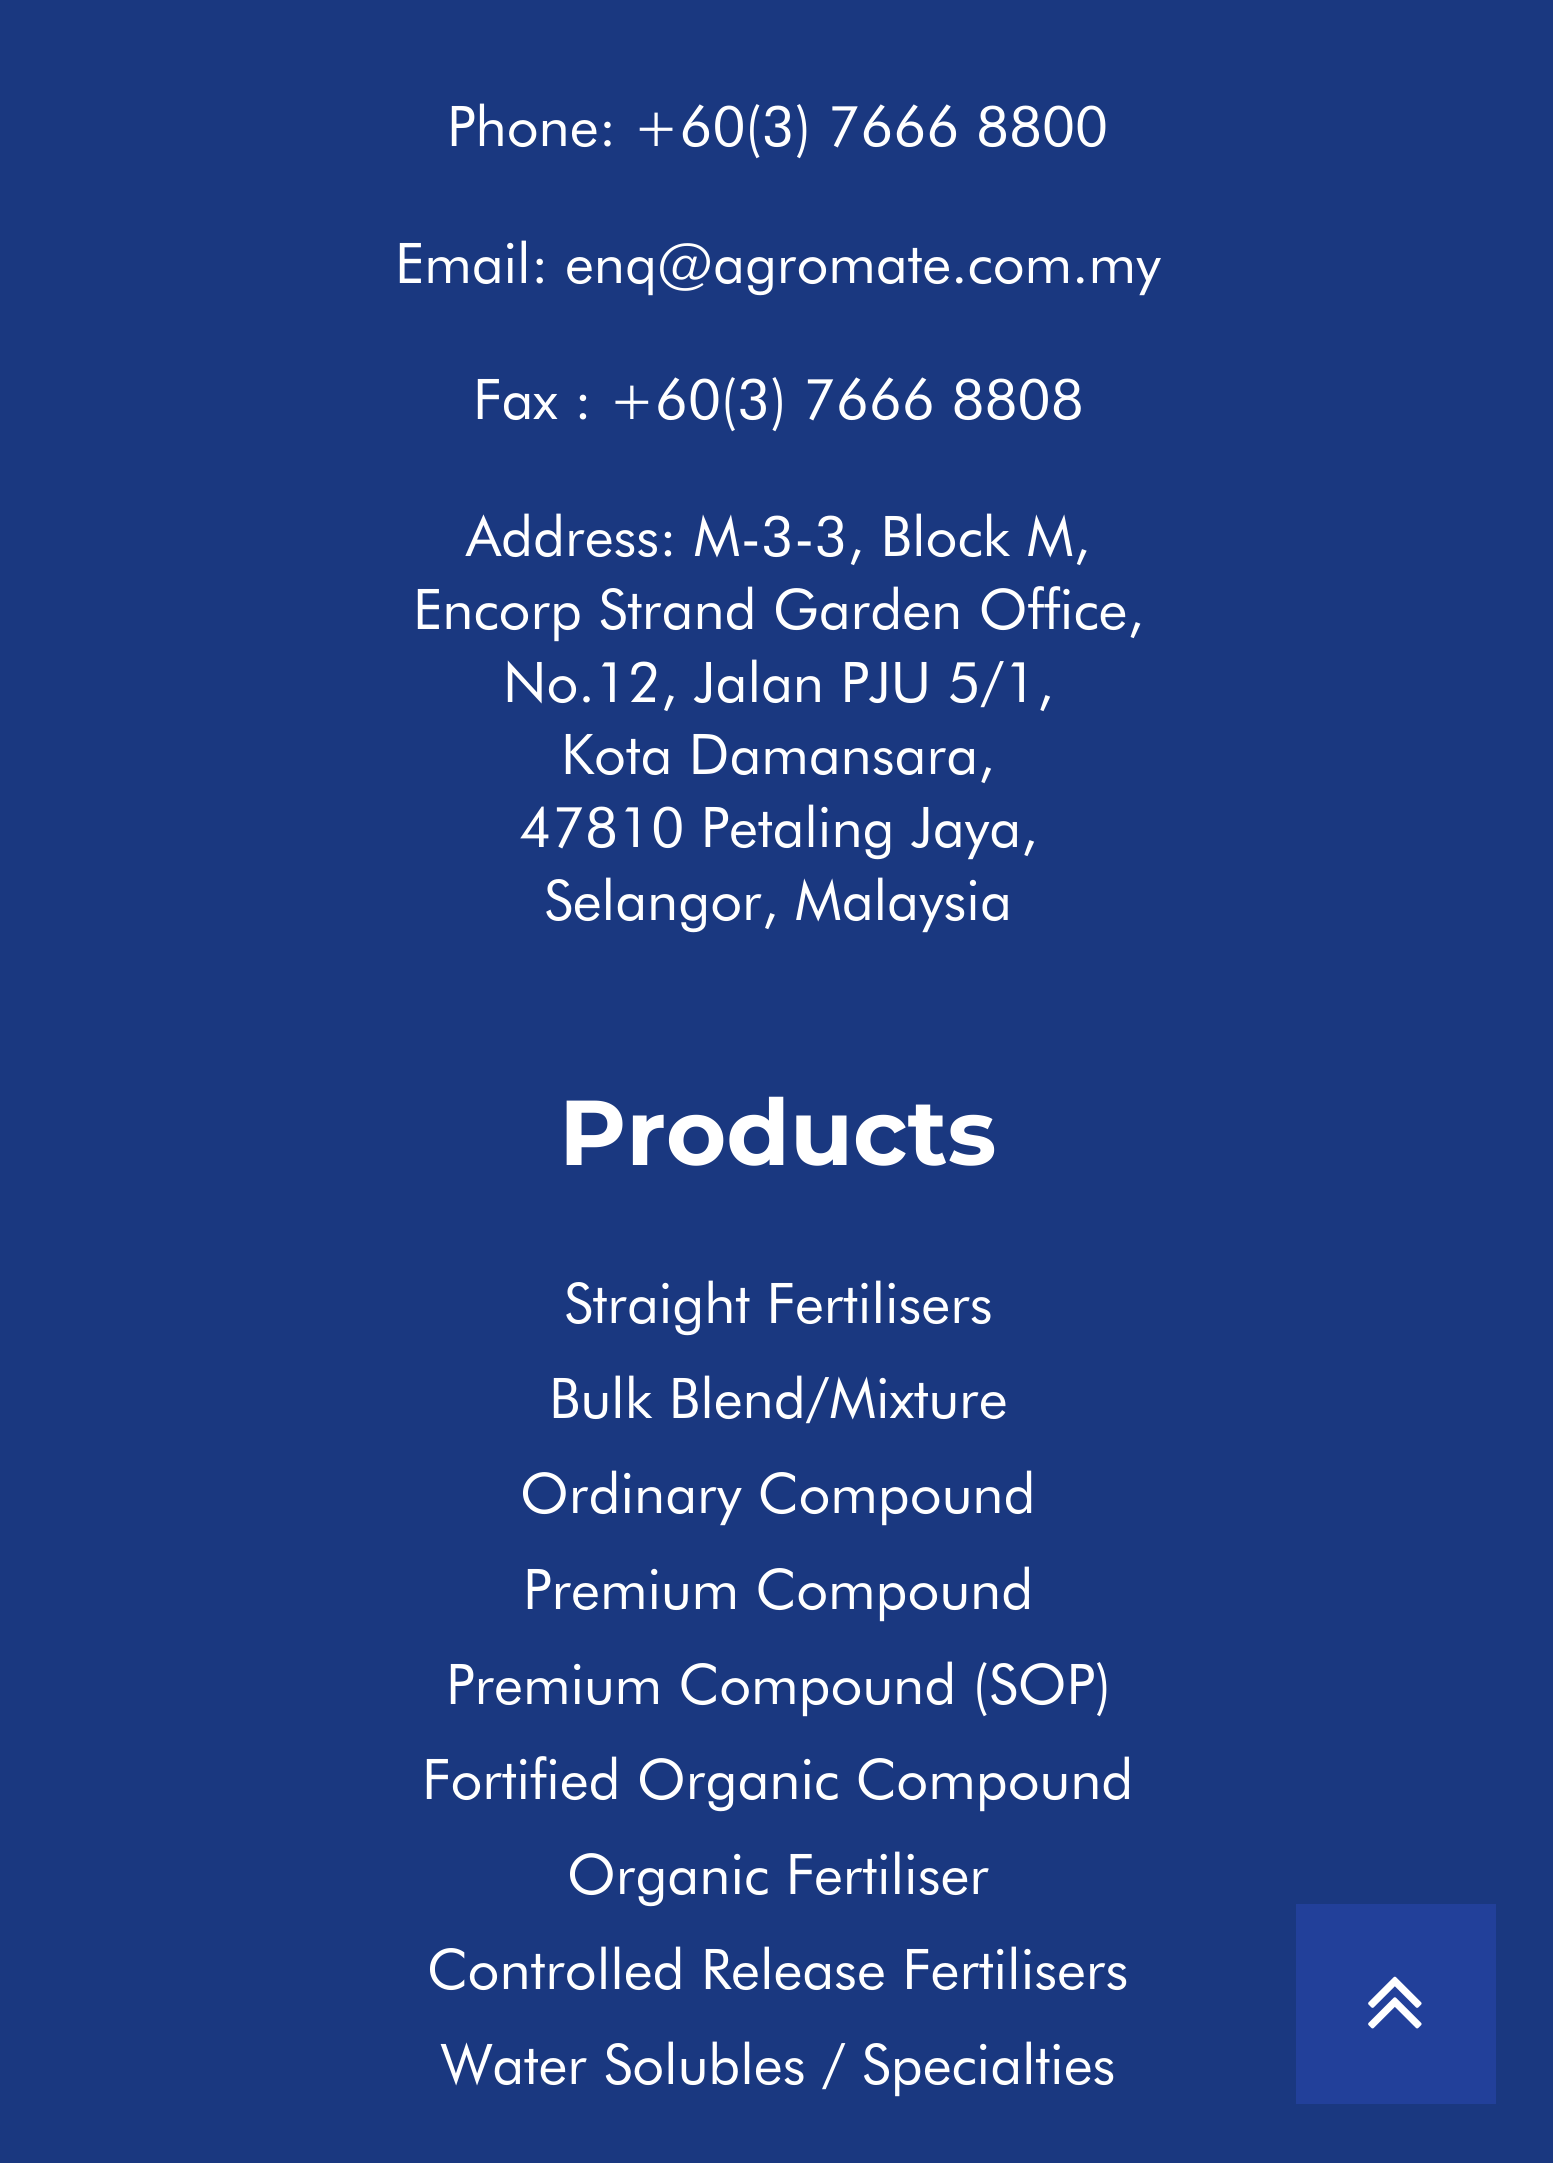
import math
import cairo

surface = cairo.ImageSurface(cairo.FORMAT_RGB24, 1553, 2163)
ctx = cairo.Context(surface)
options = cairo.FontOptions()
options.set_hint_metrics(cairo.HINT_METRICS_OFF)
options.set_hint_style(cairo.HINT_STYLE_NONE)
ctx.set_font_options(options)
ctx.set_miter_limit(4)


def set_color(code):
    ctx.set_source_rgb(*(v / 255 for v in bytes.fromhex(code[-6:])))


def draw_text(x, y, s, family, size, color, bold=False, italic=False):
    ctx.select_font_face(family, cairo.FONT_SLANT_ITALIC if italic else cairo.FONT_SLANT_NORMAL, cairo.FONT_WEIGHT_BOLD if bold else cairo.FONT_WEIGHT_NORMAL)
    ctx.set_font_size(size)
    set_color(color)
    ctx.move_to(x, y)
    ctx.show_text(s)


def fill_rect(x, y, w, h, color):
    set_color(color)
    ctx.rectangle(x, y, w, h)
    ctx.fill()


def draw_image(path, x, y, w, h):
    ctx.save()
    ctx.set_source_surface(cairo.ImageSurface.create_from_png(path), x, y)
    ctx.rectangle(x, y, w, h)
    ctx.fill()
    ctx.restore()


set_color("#1a3880")
ctx.paint()
draw_text(447, 146, "Phone: +60(3) 7666 8800", "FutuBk", 56, "#ffffff")
draw_text(395, 283, "Email: enq@agromate.com.my", "FutuBk", 56, "#ffffff")
draw_text(473, 419, "Fax : +60(3) 7666 8808", "FutuBk", 56, "#ffffff")
draw_text(466, 556, "Address: M-3-3, Block M,", "FutuBk", 56, "#ffffff")
draw_text(413, 629, "Encorp Strand Garden Office,", "FutuBk", 56, "#ffffff")
draw_text(503, 702, "No.12, Jalan PJU 5/1,", "FutuBk", 56, "#ffffff")
draw_text(561, 774, "Kota Damansara,", "FutuBk", 56, "#ffffff")
draw_text(519, 847, "47810 Petaling Jaya,", "FutuBk", 56, "#ffffff")
draw_text(544, 920, "Selangor, Malaysia", "FutuBk", 56, "#ffffff")
draw_text(559, 1165, "Products", "Montserrat", 92, "#ffffff", bold=True)
draw_text(564, 1323, "Straight Fertilisers", "FutuBk", 56, "#ffffff")
draw_text(549, 1418, "Bulk Blend/Mixture", "FutuBk", 56, "#ffffff")
draw_text(520, 1513, "Ordinary Compound", "FutuBk", 56, "#ffffff")
draw_text(523, 1609, "Premium Compound", "FutuBk", 56, "#ffffff")
draw_text(446, 1704, "Premium Compound (SOP)", "FutuBk", 56, "#ffffff")
draw_text(422, 1799, "Fortified Organic Compound", "FutuBk", 56, "#ffffff")
draw_text(567, 1894, "Organic Fertiliser", "FutuBk", 56, "#ffffff")
draw_text(427, 1989, "Controlled Release Fertilisers", "FutuBk", 56, "#ffffff")
draw_text(441, 2084, "Water Solubles / Specialties", "FutuBk", 56, "#ffffff")
fill_rect(1296, 1904, 200, 200, "#22409a")
draw_image("assets/img1.png", 1368, 1976, 54, 53)
surface.write_to_png("output.png")
